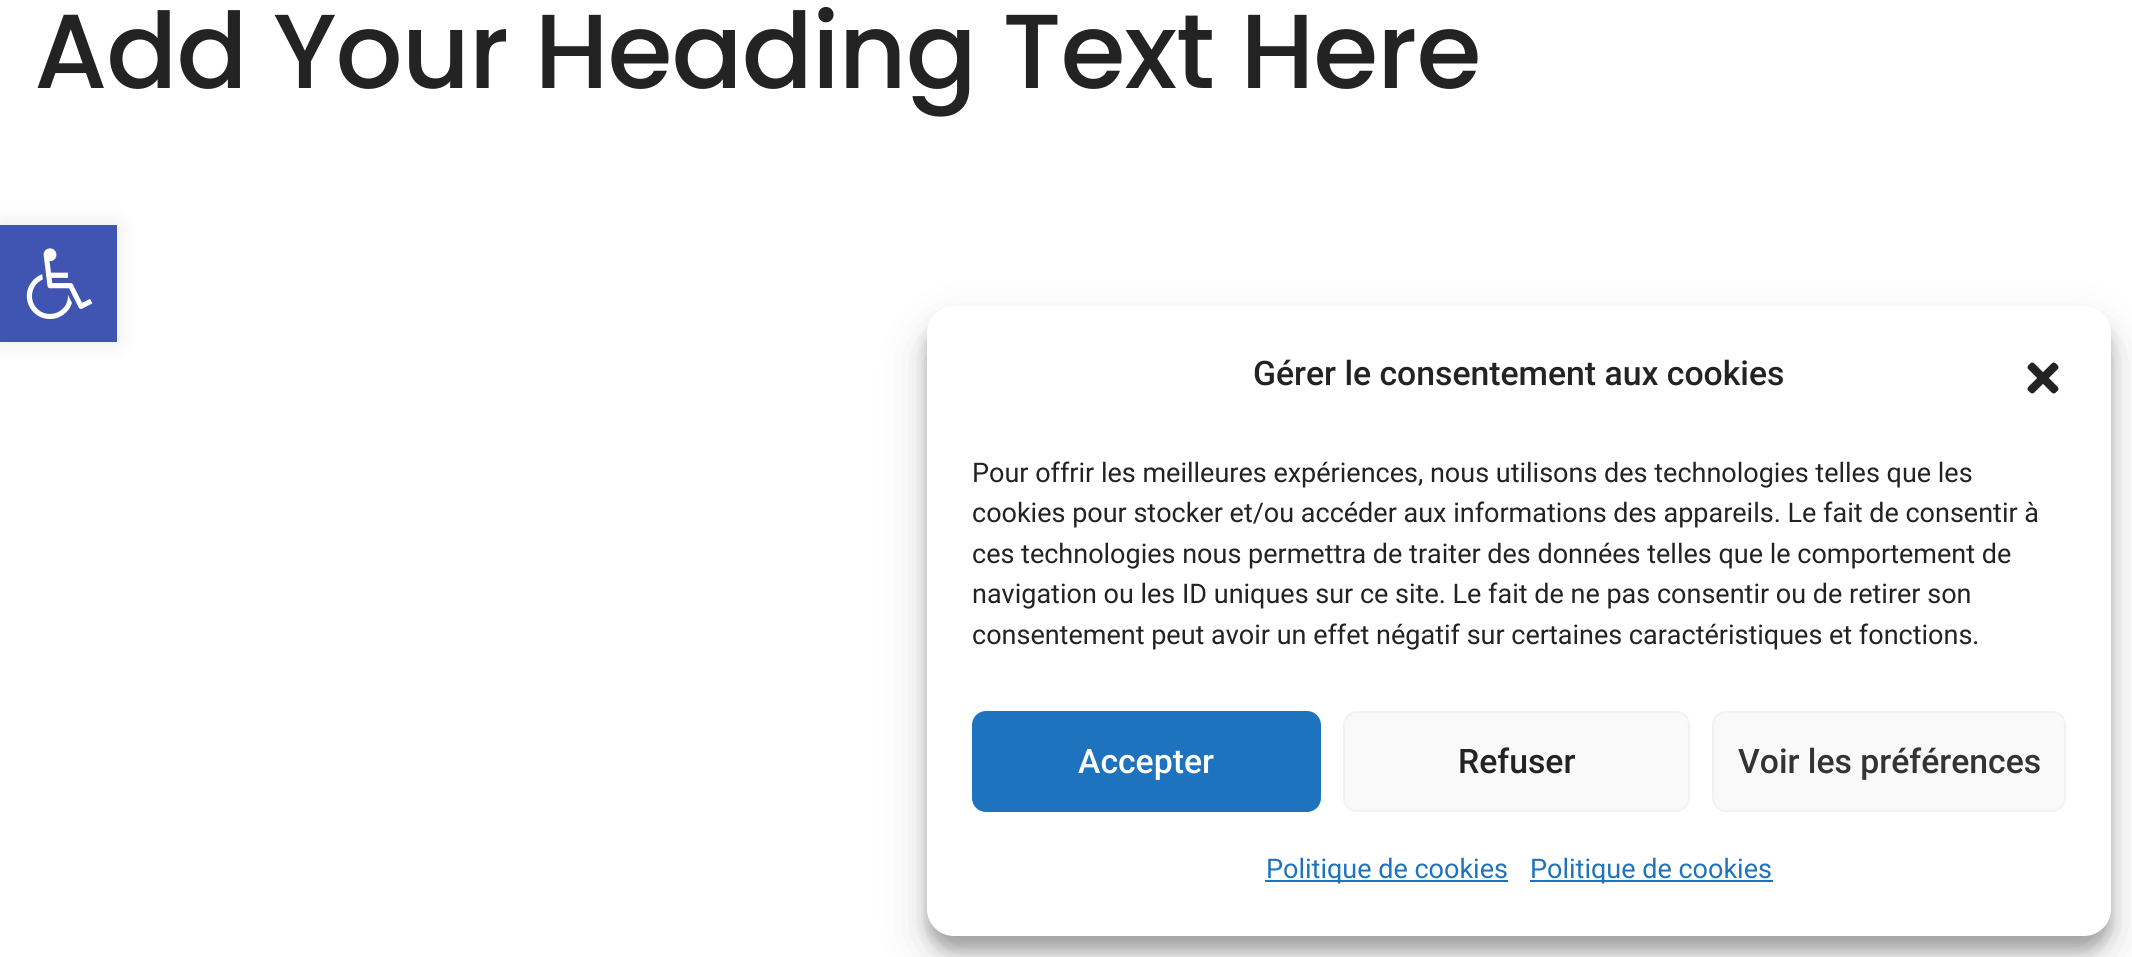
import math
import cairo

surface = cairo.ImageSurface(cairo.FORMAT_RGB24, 2132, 957)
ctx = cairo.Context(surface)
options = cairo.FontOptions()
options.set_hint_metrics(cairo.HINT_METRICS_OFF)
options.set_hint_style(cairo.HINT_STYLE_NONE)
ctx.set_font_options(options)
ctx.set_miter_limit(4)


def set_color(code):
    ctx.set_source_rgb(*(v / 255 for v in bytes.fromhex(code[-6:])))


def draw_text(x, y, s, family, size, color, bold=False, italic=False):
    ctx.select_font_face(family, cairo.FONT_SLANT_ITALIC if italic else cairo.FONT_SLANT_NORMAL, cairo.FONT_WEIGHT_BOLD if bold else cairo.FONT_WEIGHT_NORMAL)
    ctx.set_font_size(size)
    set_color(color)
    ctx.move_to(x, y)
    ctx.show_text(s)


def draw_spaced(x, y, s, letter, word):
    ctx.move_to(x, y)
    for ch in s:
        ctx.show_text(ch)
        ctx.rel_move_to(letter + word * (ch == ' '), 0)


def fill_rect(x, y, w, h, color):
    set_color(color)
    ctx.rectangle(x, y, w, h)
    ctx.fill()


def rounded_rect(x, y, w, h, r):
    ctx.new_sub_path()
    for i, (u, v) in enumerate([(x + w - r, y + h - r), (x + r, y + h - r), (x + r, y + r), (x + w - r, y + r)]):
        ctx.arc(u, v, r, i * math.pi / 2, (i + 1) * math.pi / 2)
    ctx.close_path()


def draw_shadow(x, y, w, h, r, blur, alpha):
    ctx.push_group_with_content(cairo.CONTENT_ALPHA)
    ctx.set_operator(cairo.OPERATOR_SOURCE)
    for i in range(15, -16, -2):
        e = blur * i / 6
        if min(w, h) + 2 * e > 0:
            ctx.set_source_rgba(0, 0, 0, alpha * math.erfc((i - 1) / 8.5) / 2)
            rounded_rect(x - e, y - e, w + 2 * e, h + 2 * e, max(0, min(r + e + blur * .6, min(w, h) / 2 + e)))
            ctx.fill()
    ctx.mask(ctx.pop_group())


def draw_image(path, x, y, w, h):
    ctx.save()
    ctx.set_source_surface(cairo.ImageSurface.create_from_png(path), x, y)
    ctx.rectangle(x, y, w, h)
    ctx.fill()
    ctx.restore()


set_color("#ffffff")
ctx.paint()
ctx.select_font_face("Poppins Medium")
ctx.set_font_size(105.25)
set_color("#232323")
draw_spaced(34, 88, "Add Your Heading Text Here", -1.1, 0)
set_color("#000000")
draw_shadow(0, 225, 117, 117, 0, 11, 0.1)
fill_rect(0, 225, 117, 117, "#4054b2")
draw_image("assets/img1.png", 26, 248, 67, 72)
set_color("#000000")
draw_shadow(927, 320, 1184, 630, 27, 7, 0.23)
draw_shadow(927, 329, 1184, 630, 27, 22.5, 0.19)
set_color("#ffffff")
rounded_rect(927, 306, 1184, 630, 27)
ctx.fill()
draw_text(1253, 385, "Gérer le consentement aux cookies", "Roboto Medium", 33.75, "#232323")
draw_image("assets/img2.png", 2027, 362, 32, 32)
draw_text(972, 482, "Pour offrir les meilleures expériences, nous utilisons des technologies telles que les", "Roboto", 27, "#232323")
draw_text(972, 522, "cookies pour stocker et/ou accéder aux informations des appareils. Le fait de consentir à", "Roboto", 27, "#232323")
draw_text(972, 563, "ces technologies nous permettra de traiter des données telles que le comportement de", "Roboto", 27, "#232323")
draw_text(972, 603, "navigation ou les ID uniques sur ce site. Le fait de ne pas consentir ou de retirer son", "Roboto", 27, "#232323")
draw_text(972, 644, "consentement peut avoir un effet négatif sur certaines caractéristiques et fonctions.", "Roboto", 27, "#232323")
set_color("#1e73be")
rounded_rect(973, 712, 347, 99, 13)
ctx.fill_preserve()
ctx.stroke()
draw_text(1078, 773, "Accepter", "Roboto Medium", 33.75, "#ffffff")
set_color("#f9f9f9")
rounded_rect(1344, 712, 345, 99, 13)
ctx.fill_preserve()
set_color("#f2f2f2")
ctx.stroke()
draw_text(1458, 773, "Refuser", "Roboto Medium", 33.75, "#232323")
set_color("#f9f9f9")
rounded_rect(1713, 712, 352, 99, 13)
ctx.fill_preserve()
set_color("#f2f2f2")
ctx.stroke()
draw_text(1738, 773, "Voir les préférences", "Roboto Medium", 33.75, "#333333")
fill_rect(1265, 880, 243, 2, "#1e73be")
draw_text(1266, 878, "Politique de cookies", "Roboto", 27, "#1e73be")
fill_rect(1530, 880, 243, 2, "#1e73be")
draw_text(1530, 878, "Politique de cookies", "Roboto", 27, "#1e73be")
surface.write_to_png("output.png")
